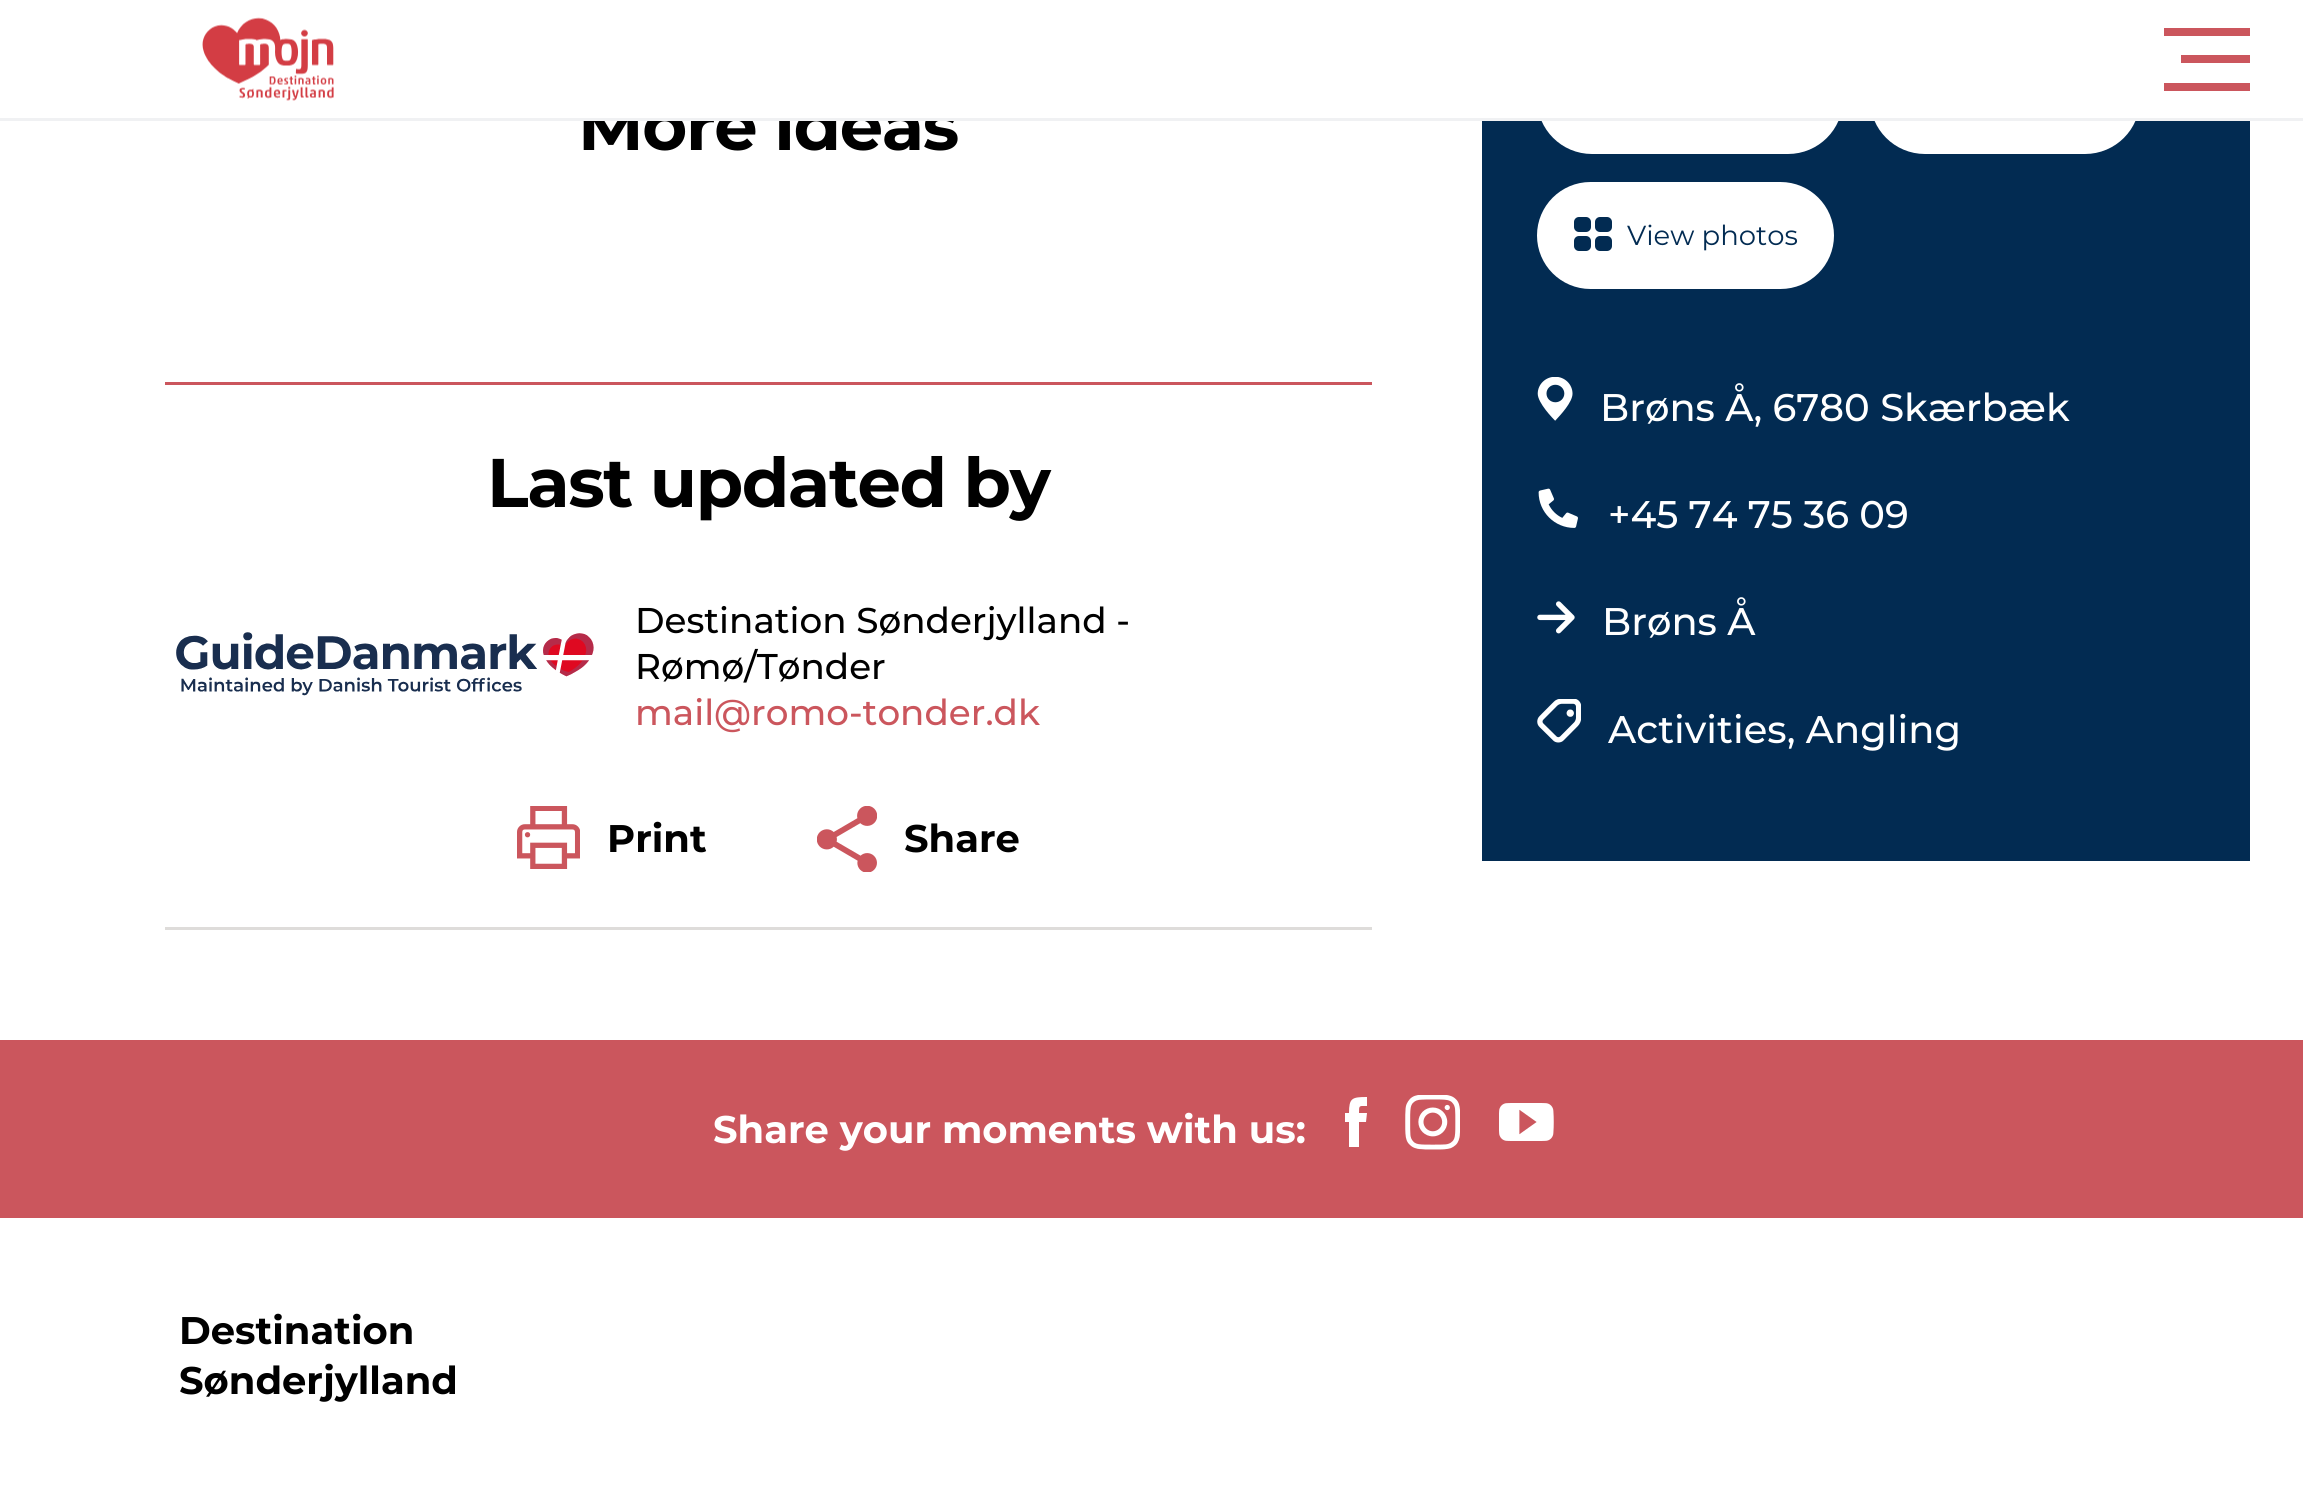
import math
import cairo

surface = cairo.ImageSurface(cairo.FORMAT_RGB24, 2303, 1492)
ctx = cairo.Context(surface)
options = cairo.FontOptions()
options.set_hint_metrics(cairo.HINT_METRICS_OFF)
options.set_hint_style(cairo.HINT_STYLE_NONE)
ctx.set_font_options(options)
ctx.set_miter_limit(4)


def set_color(code):
    ctx.set_source_rgb(*(v / 255 for v in bytes.fromhex(code[-6:])))


def draw_text(x, y, s, family, size, color, bold=False, italic=False):
    ctx.select_font_face(family, cairo.FONT_SLANT_ITALIC if italic else cairo.FONT_SLANT_NORMAL, cairo.FONT_WEIGHT_BOLD if bold else cairo.FONT_WEIGHT_NORMAL)
    ctx.set_font_size(size)
    set_color(color)
    ctx.move_to(x, y)
    ctx.show_text(s)


def draw_spaced(x, y, s, letter, word):
    ctx.move_to(x, y)
    for ch in s:
        ctx.show_text(ch)
        ctx.rel_move_to(letter + word * (ch == ' '), 0)


def fill_rect(x, y, w, h, color):
    set_color(color)
    ctx.rectangle(x, y, w, h)
    ctx.fill()


def rounded_rect(x, y, w, h, r):
    ctx.new_sub_path()
    for i, (u, v) in enumerate([(x + w - r, y + h - r), (x + r, y + h - r), (x + r, y + r), (x + w - r, y + r)]):
        ctx.arc(u, v, r, i * math.pi / 2, (i + 1) * math.pi / 2)
    ctx.close_path()


def draw_image(path, x, y, w, h):
    ctx.save()
    ctx.set_source_surface(cairo.ImageSurface.create_from_png(path), x, y)
    ctx.rectangle(x, y, w, h)
    ctx.fill()
    ctx.restore()


set_color("#ffffff")
ctx.paint()
ctx.select_font_face("Montserrat", cairo.FONT_SLANT_NORMAL, cairo.FONT_WEIGHT_BOLD)
ctx.set_font_size(68.75)
set_color("#000000")
draw_spaced(578, 150, "More ideas", -1.4, 0)
fill_rect(583, 95, 374, 23, "#ffffff")
fill_rect(1482, 121, 768, 740, "#022b52")
set_color("#ffffff")
rounded_rect(1537, 44, 306, 110, 55)
ctx.fill()
rounded_rect(1870, 44, 270, 110, 55)
ctx.fill()
fill_rect(0, 118, 2303, 3, "#f0f1f3")
draw_image("assets/img1.png", 202, 17, 132, 84)
fill_rect(2164, 28, 86, 8, "#cb565d")
fill_rect(2181, 55, 69, 8, "#cb565d")
fill_rect(2164, 83, 86, 8, "#cb565d")
fill_rect(165, 382, 1207, 3, "#cb565d")
fill_rect(165, 927, 1207, 3, "#dedcda")
set_color("#000000")
draw_spaced(487, 507, "Last updated by", -1.4, 0)
draw_image("assets/img2.png", 176, 632, 418, 64)
draw_text(635, 633, "Destination Sønderjylland -", "Montserrat Medium", 35.75, "#000000")
draw_text(635, 679, "Rømø/Tønder", "Montserrat Medium", 35.75, "#000000")
draw_text(635, 725, "mail@romo-tonder.dk", "Montserrat Medium", 35.75, "#cb565d")
draw_image("assets/img3.png", 517, 806, 63, 63)
draw_text(607, 852, "Print", "Montserrat", 38.5, "#000000", bold=True)
draw_image("assets/img4.png", 817, 806, 60, 66)
draw_text(904, 852, "Share", "Montserrat", 38.5, "#000000", bold=True)
set_color("#ffffff")
rounded_rect(1537, 182, 297, 107, 53.5)
ctx.fill()
set_color("#022b52")
rounded_rect(1595, 217, 17, 15, 5)
ctx.fill()
rounded_rect(1595, 236, 17, 15, 5)
ctx.fill()
rounded_rect(1574, 217, 17, 15, 5)
ctx.fill()
rounded_rect(1574, 236, 17, 15, 5)
ctx.fill()
draw_text(1627, 245, "View photos", "Montserrat", 27.5, "#022b52")
draw_image("assets/img5.png", 1537, 377, 36, 44)
draw_text(1600, 421, "Brøns Å, 6780 Skærbæk", "Montserrat Medium", 38.5, "#ffffff")
draw_image("assets/img6.png", 1538, 488, 40, 40)
draw_text(1608, 528, "+45 74 75 36 09", "Montserrat Medium", 38.5, "#ffffff")
draw_image("assets/img7.png", 1537, 601, 38, 33)
draw_text(1602, 635, "Brøns Å", "Montserrat Medium", 38.5, "#ffffff")
draw_image("assets/img8.png", 1537, 699, 44, 44)
draw_text(1608, 743, "Activities, Angling", "Montserrat Medium", 38.5, "#ffffff")
fill_rect(0, 1040, 2303, 178, "#cb565d")
draw_text(713, 1143, "Share your moments with us:", "Montserrat", 38.5, "#ffffff", bold=True)
ctx.new_path()
ctx.move_to(1367, 1113)
ctx.line_to(1359, 1113)
ctx.curve_to(1359, 1105, 1359, 1106, 1367, 1106)
ctx.line_to(1367, 1097)
ctx.curve_to(1352, 1097, 1349, 1098, 1349, 1113)
ctx.line_to(1345, 1113)
ctx.line_to(1345, 1122)
ctx.line_to(1349, 1122)
ctx.line_to(1349, 1147)
ctx.line_to(1359, 1147)
ctx.line_to(1359, 1122)
ctx.line_to(1366, 1122)
ctx.close_path()
ctx.fill()
draw_image("assets/img9.png", 1405, 1095, 55, 55)
draw_image("assets/img10.png", 1499, 1103, 55, 38)
draw_text(179, 1344, "Destination", "Montserrat", 38.5, "#000000", bold=True)
draw_text(179, 1394, "Sønderjylland", "Montserrat", 38.5, "#000000", bold=True)
surface.write_to_png("output.png")
